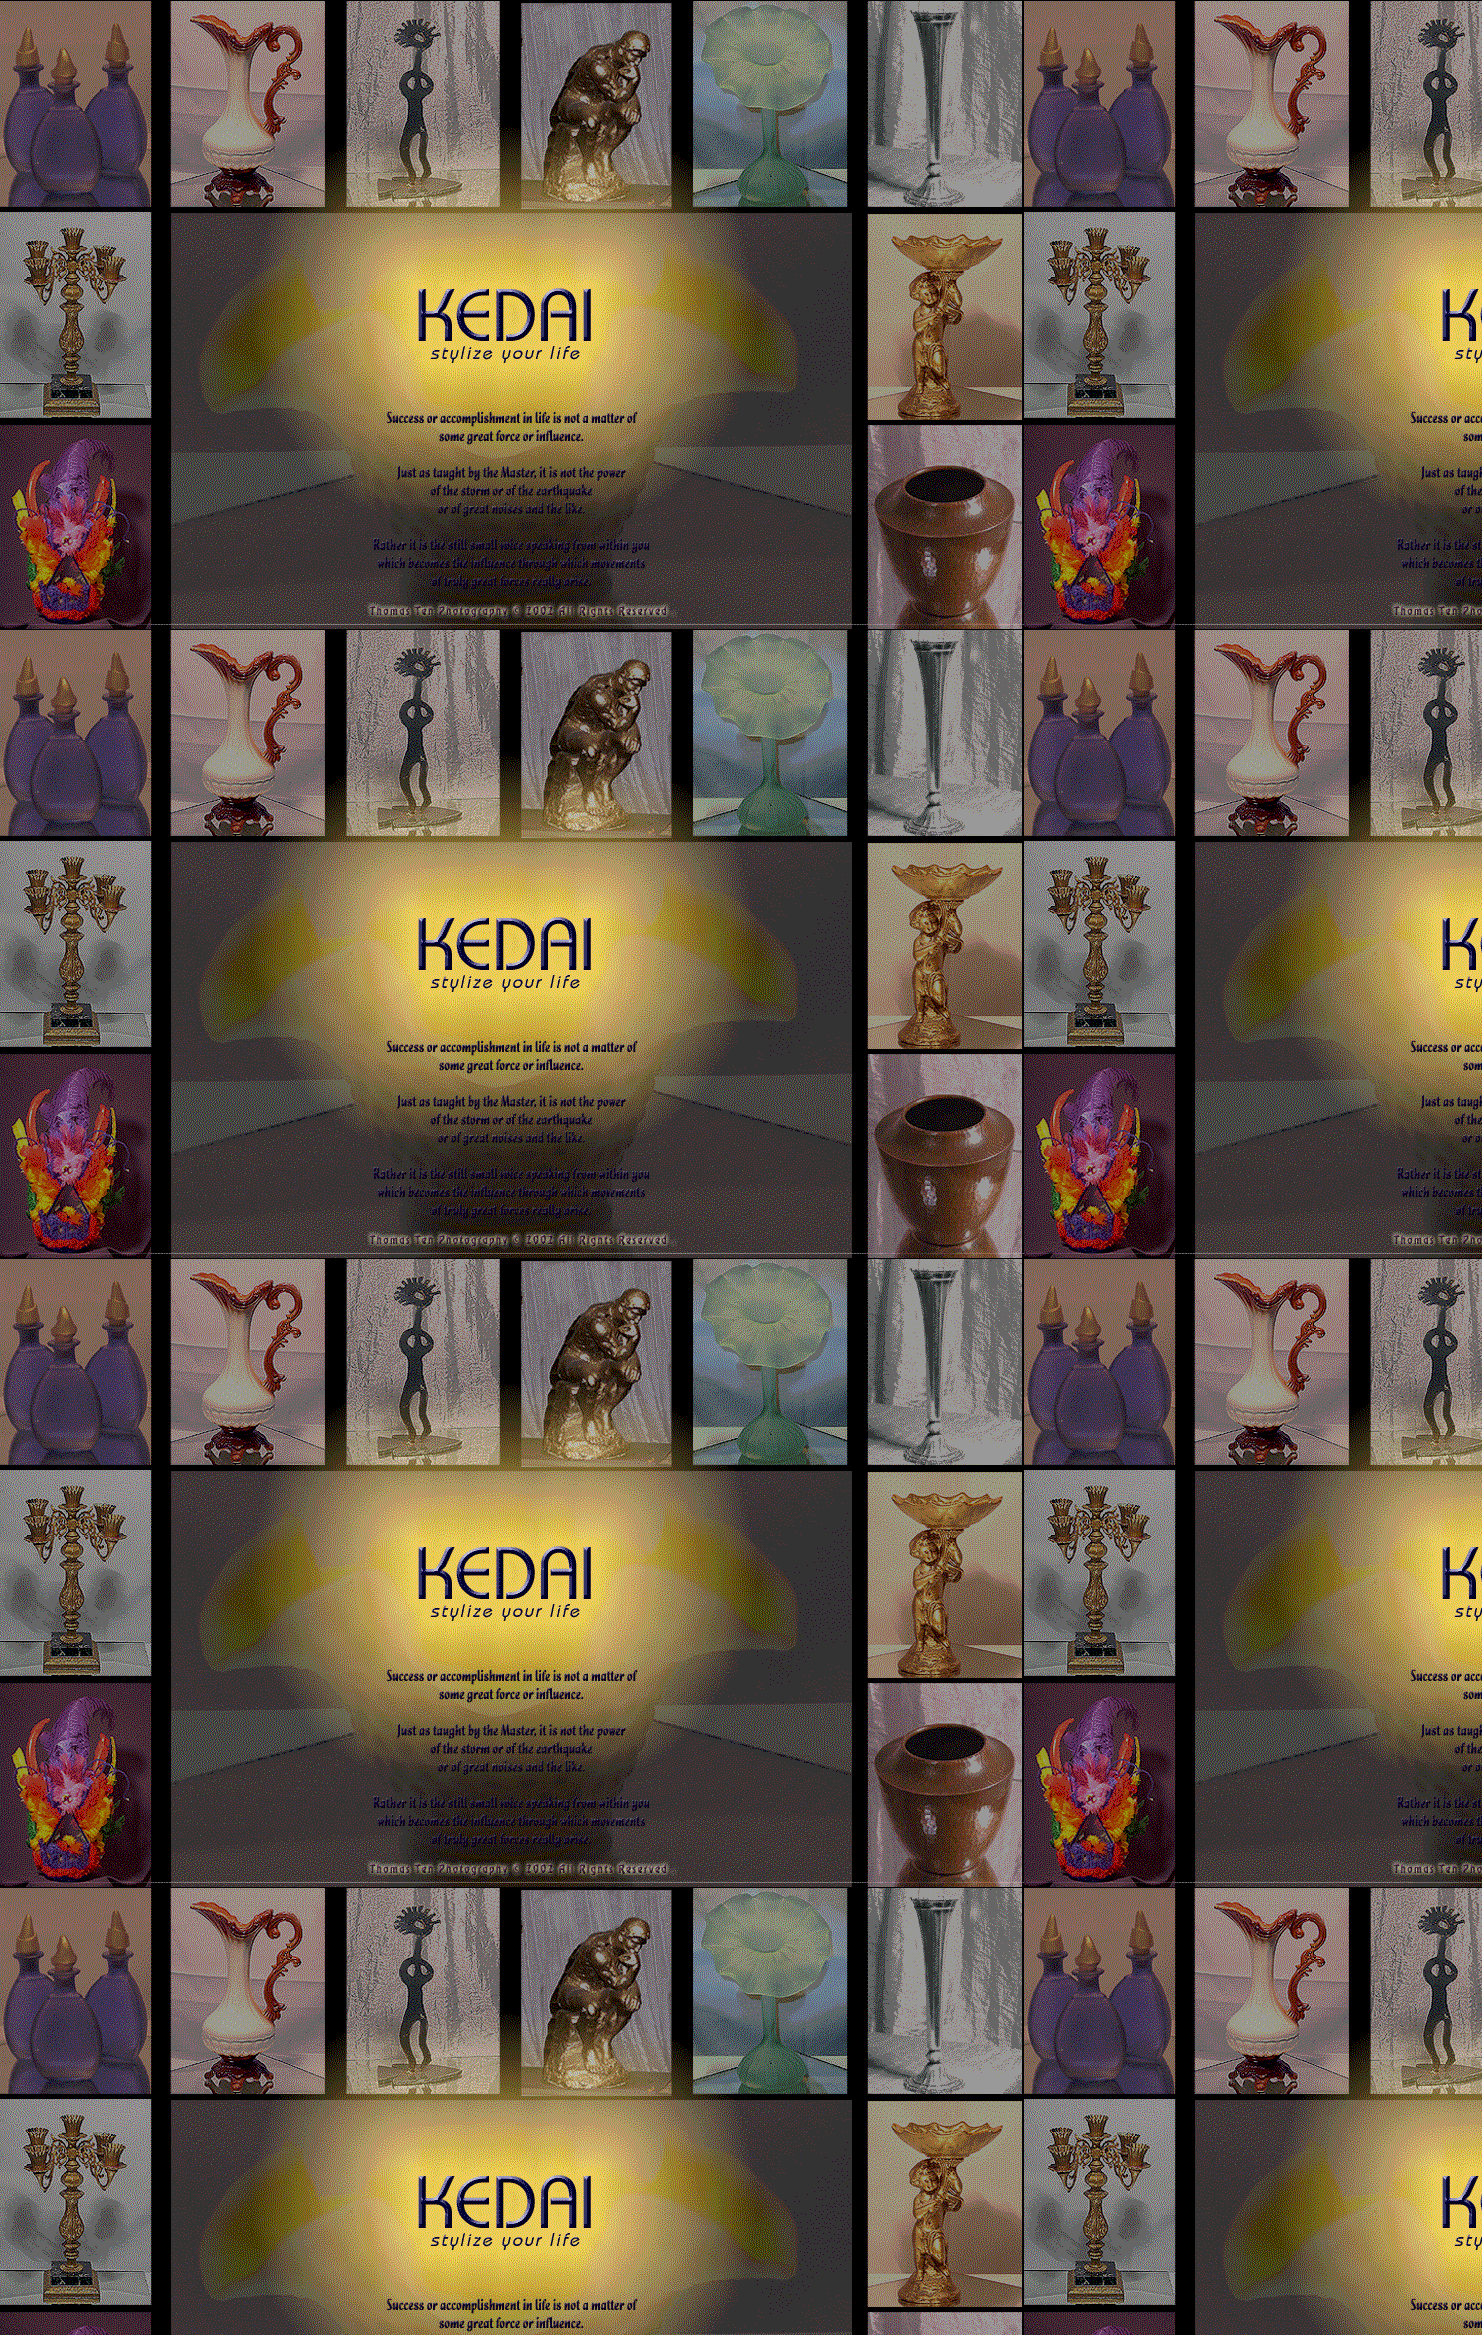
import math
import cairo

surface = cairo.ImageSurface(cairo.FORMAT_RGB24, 1482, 2335)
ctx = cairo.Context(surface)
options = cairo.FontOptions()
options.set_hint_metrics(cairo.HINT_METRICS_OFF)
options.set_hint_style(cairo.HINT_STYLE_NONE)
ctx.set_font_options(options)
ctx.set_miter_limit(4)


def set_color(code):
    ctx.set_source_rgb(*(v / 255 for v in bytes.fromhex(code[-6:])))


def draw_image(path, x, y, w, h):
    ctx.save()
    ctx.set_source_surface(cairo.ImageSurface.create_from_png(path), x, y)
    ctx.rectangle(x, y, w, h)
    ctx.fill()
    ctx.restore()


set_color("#ffffff")
ctx.paint()
draw_image("assets/img1.png", 0, 0, 1482, 2335)
surface.write_to_png("output.png")
